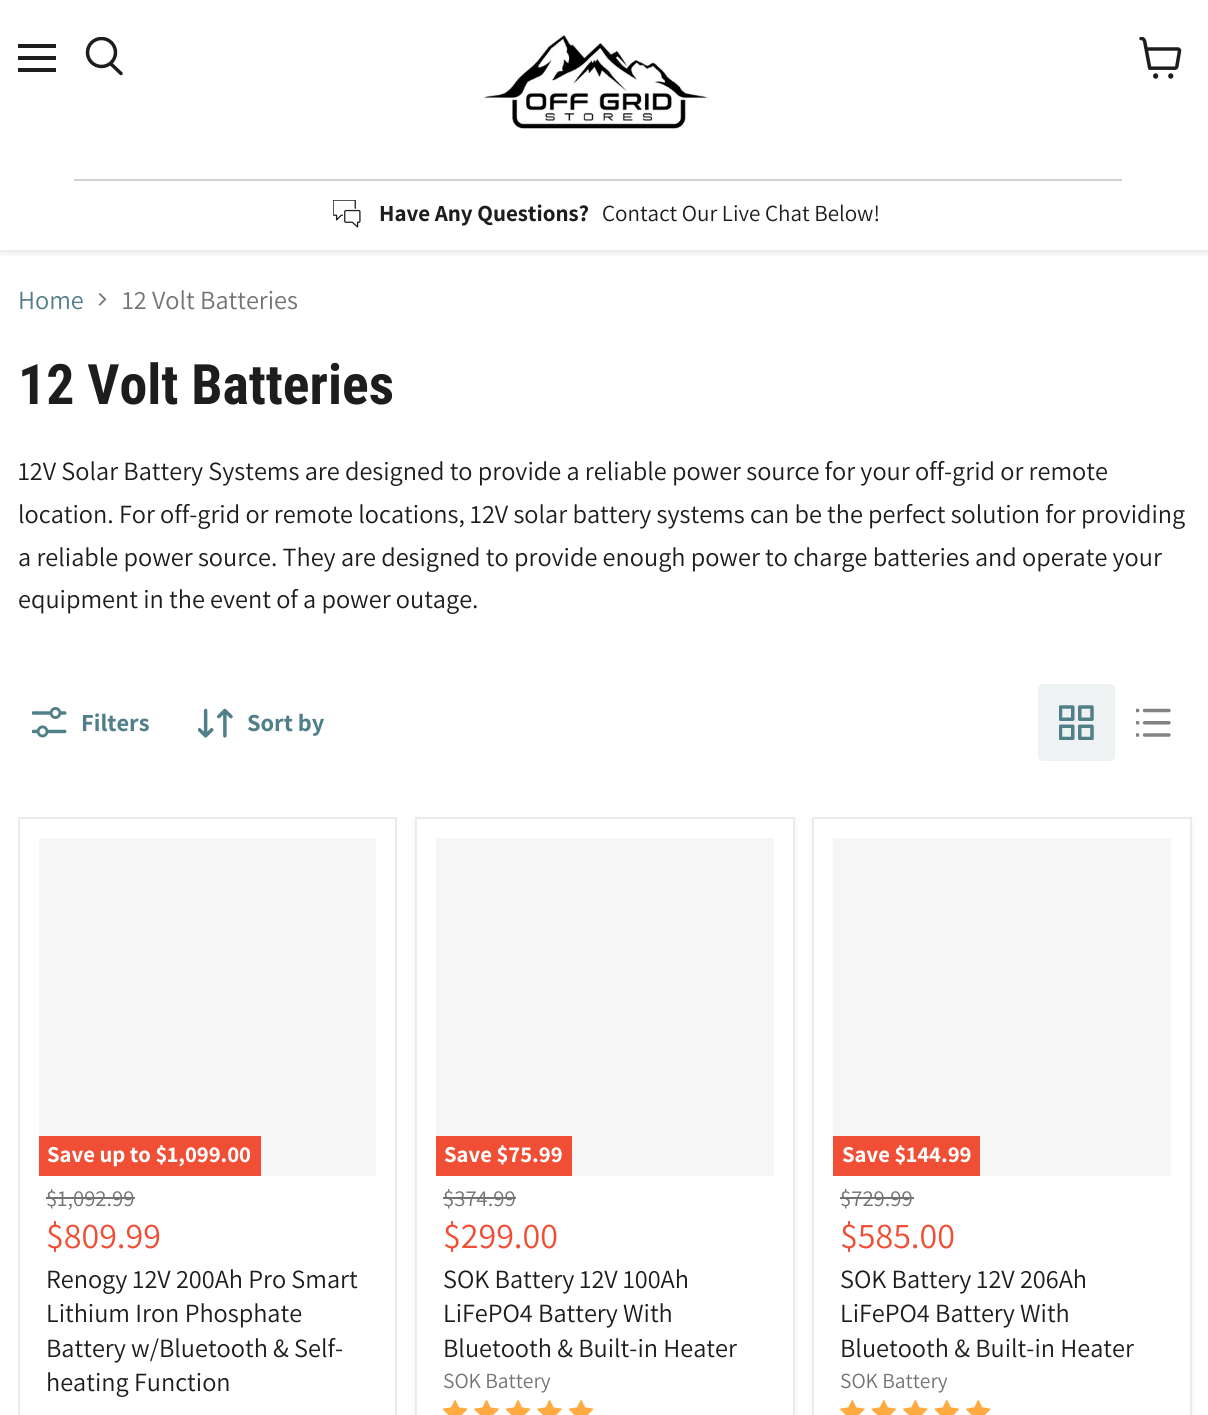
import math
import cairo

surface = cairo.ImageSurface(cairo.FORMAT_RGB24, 1208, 1415)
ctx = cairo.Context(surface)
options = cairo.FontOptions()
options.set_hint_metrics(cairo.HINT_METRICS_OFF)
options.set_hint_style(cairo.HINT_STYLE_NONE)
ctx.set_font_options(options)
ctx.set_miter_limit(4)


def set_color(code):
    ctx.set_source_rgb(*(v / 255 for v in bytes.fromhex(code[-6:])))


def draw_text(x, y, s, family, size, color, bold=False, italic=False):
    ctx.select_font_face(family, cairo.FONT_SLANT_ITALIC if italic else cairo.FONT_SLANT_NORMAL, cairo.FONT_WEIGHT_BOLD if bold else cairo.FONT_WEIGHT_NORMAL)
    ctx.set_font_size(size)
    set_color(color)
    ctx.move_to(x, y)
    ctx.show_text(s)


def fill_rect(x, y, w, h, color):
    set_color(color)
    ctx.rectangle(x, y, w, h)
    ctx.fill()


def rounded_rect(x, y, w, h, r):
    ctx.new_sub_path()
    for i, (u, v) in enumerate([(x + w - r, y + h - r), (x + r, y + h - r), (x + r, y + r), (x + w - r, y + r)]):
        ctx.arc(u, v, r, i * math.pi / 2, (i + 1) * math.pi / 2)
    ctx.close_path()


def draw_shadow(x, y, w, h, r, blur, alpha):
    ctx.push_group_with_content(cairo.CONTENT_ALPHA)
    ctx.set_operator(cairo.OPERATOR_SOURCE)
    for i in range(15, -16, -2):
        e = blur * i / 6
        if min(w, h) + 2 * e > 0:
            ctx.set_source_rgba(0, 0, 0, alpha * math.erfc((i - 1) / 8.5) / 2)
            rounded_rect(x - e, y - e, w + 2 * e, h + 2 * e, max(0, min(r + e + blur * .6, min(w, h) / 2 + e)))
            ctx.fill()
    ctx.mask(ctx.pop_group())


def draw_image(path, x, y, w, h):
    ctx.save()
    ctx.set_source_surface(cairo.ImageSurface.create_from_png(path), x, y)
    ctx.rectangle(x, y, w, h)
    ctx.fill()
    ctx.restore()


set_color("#ffffff")
ctx.paint()
ctx.save()
ctx.rectangle(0, 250, 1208, 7)
ctx.clip()
set_color("#808080")
draw_shadow(0, 2, 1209, 250, 0, 3.5, 0.25)
ctx.restore()
fill_rect(18, 44, 38, 4, "#1d1d1d")
fill_rect(18, 56, 38, 4, "#1d1d1d")
fill_rect(18, 68, 38, 4, "#1d1d1d")
ctx.new_path()
ctx.move_to(121, 73.5)
ctx.line_to(111, 64)
ctx.set_line_width(3.5)
ctx.set_line_cap(cairo.LINE_CAP_ROUND)
ctx.stroke()
ctx.save()
ctx.rectangle(84, 37, 40, 42)
ctx.clip()
ctx.arc(101.5, 52.5, 14, 0, 2 * math.pi)
ctx.set_line_cap(cairo.LINE_CAP_BUTT)
ctx.stroke()
ctx.restore()
draw_image("assets/img1.png", 1139, 37, 43, 42)
draw_image("assets/img2.png", 484, 35, 224, 95)
fill_rect(74, 179, 1048, 2, "#d2d2d2")
draw_image("assets/img3.png", 333, 200, 28, 28)
draw_text(379, 221, "Have Any Questions?", "Assistant", 23, "#1d1d1d", bold=True)
draw_text(602, 221, "Contact Our Live Chat Below!", "Assistant", 23, "#1d1d1d")
draw_text(18, 309, "Home", "Assistant", 26.25, "#517f89")
draw_image("assets/img4.png", 98, 293, 9, 13)
draw_text(122, 309, "12 Volt Batteries", "Assistant", 26.25, "#737373")
draw_text(18, 404, "12 Volt Batteries", "Roboto Condensed", 55.75, "#1d1d1d", bold=True)
draw_text(18, 480, "12V Solar Battery Systems are designed to provide a reliable power source for your off-grid or remote", "Assistant", 26.25, "#1d1d1d")
draw_text(18, 523, "location. For off-grid or remote locations, 12V solar battery systems can be the perfect solution for providing", "Assistant", 26.25, "#1d1d1d")
draw_text(18, 566, "a reliable power source. They are designed to provide enough power to charge batteries and operate your", "Assistant", 26.25, "#1d1d1d")
draw_text(18, 608, "equipment in the event of a power outage.", "Assistant", 26.25, "#1d1d1d")
draw_image("assets/img5.png", 32, 707, 35, 31)
draw_text(81, 731, "Filters", "Assistant", 24.5, "#517f89", bold=True)
draw_image("assets/img6.png", 198, 708, 35, 30)
draw_text(247, 731, "Sort by", "Assistant", 24.5, "#517f89", bold=True)
set_color("#eef2f3")
rounded_rect(1038, 684, 77, 77, 5)
ctx.fill()
draw_image("assets/img7.png", 1059, 705, 35, 35)
draw_image("assets/img8.png", 1136, 708, 35, 29)
ctx.rectangle(19, 818, 377, 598)
set_color("#ebebeb")
ctx.set_line_width(2)
ctx.set_line_cap(cairo.LINE_CAP_BUTT)
ctx.stroke()
fill_rect(39, 838, 337, 338, "#f6f6f6")
fill_rect(39, 1136, 222, 40, "#f04f36")
draw_text(47, 1162, "Save up to $1,099.00", "Assistant", 22.75, "#ffffff", bold=True)
draw_text(46, 1206, "$1,092.99", "Assistant", 22.75, "#737373")
fill_rect(46, 1197, 89, 2, "#737373")
draw_text(46, 1248, "$809.99", "Assistant", 36, "#f04f36")
draw_text(46, 1288, "Renogy 12V 200Ah Pro Smart", "Assistant", 26.25, "#1d1d1d")
draw_text(46, 1322, "Lithium Iron Phosphate", "Assistant", 26.25, "#1d1d1d")
draw_text(46, 1357, "Battery w/Bluetooth & Self-", "Assistant", 26.25, "#1d1d1d")
draw_text(46, 1391, "heating Function", "Assistant", 26.25, "#1d1d1d")
set_color("#808080")
draw_shadow(415, 819, 380, 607, 0, 3.5, 0.11)
set_color("#ffffff")
ctx.rectangle(416, 818, 378, 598)
ctx.fill_preserve()
set_color("#ebebeb")
ctx.stroke()
fill_rect(436, 838, 338, 338, "#f6f6f6")
fill_rect(436, 1136, 136, 40, "#f04f36")
draw_text(444, 1162, "Save $75.99", "Assistant", 22.75, "#ffffff", bold=True)
draw_text(443, 1206, "$374.99", "Assistant", 22.75, "#737373")
fill_rect(443, 1197, 73, 2, "#737373")
draw_text(443, 1248, "$299.00", "Assistant", 36, "#f04f36")
draw_text(443, 1288, "SOK Battery 12V 100Ah", "Assistant", 26.25, "#1d1d1d")
draw_text(443, 1322, "LiFePO4 Battery With", "Assistant", 26.25, "#1d1d1d")
draw_text(443, 1357, "Bluetooth & Built-in Heater", "Assistant", 26.25, "#1d1d1d")
draw_text(443, 1388, "SOK Battery", "Assistant", 21.5, "#737373")
draw_image("assets/img9.png", 442, 1400, 26, 15)
draw_image("assets/img10.png", 474, 1400, 25, 15)
draw_image("assets/img9.png", 505, 1400, 26, 15)
draw_image("assets/img10.png", 537, 1400, 25, 15)
draw_image("assets/img9.png", 568, 1400, 26, 15)
set_color("#808080")
draw_shadow(812, 819, 380, 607, 0, 3.5, 0.11)
set_color("#ffffff")
ctx.rectangle(813, 818, 378, 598)
ctx.fill_preserve()
set_color("#ebebeb")
ctx.stroke()
fill_rect(833, 838, 338, 338, "#f6f6f6")
fill_rect(833, 1136, 147, 40, "#f04f36")
draw_text(842, 1162, "Save $144.99", "Assistant", 22.75, "#ffffff", bold=True)
draw_text(840, 1206, "$729.99", "Assistant", 22.75, "#737373")
fill_rect(840, 1197, 74, 2, "#737373")
draw_text(840, 1248, "$585.00", "Assistant", 36, "#f04f36")
draw_text(840, 1288, "SOK Battery 12V 206Ah", "Assistant", 26.25, "#1d1d1d")
draw_text(840, 1322, "LiFePO4 Battery With", "Assistant", 26.25, "#1d1d1d")
draw_text(840, 1357, "Bluetooth & Built-in Heater", "Assistant", 26.25, "#1d1d1d")
draw_text(840, 1388, "SOK Battery", "Assistant", 21.5, "#737373")
draw_image("assets/img11.png", 840, 1400, 25, 15)
draw_image("assets/img12.png", 871, 1400, 26, 15)
draw_image("assets/img11.png", 903, 1400, 25, 15)
draw_image("assets/img12.png", 934, 1400, 26, 15)
draw_image("assets/img11.png", 966, 1400, 25, 15)
surface.write_to_png("output.png")
